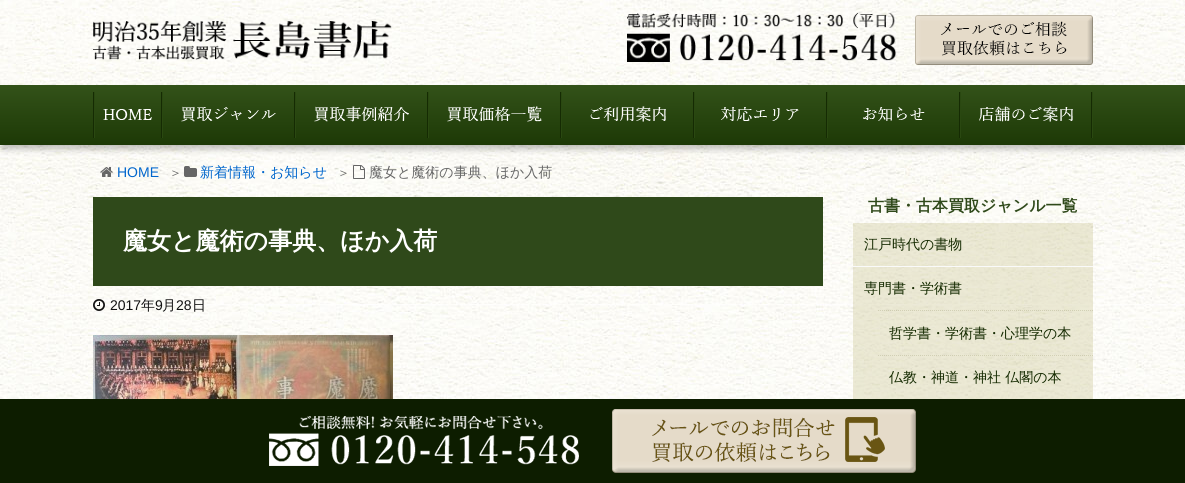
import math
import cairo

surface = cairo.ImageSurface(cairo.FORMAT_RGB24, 1185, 483)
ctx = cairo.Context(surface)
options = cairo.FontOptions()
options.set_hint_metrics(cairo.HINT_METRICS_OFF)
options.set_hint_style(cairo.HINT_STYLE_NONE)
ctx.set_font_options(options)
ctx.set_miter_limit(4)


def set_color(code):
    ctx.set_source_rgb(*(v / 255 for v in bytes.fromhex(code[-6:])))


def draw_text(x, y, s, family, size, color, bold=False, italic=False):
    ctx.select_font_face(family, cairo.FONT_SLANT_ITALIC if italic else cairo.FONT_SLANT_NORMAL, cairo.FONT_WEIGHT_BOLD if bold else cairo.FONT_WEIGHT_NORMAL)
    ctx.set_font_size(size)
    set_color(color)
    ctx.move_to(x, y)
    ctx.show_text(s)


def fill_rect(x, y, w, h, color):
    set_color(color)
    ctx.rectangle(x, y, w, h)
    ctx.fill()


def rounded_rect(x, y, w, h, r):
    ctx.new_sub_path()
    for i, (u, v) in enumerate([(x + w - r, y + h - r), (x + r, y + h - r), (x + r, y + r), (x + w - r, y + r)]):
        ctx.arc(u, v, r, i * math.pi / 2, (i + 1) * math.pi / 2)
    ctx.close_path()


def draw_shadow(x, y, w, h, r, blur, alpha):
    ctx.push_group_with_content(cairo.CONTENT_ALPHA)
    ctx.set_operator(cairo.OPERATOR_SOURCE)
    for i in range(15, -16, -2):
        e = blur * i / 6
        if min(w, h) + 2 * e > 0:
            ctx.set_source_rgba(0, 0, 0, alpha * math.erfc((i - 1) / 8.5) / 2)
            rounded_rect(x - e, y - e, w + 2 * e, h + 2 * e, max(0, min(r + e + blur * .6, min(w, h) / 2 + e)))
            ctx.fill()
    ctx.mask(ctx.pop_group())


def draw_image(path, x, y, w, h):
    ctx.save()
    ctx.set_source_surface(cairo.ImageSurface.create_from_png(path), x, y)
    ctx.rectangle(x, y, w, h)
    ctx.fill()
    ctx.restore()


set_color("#ffffff")
ctx.paint()
draw_image("assets/img1.png", 0, 0, 1185, 399)
draw_image("assets/img2.png", 93, 21, 299, 39)
draw_image("assets/img3.png", 627, 13, 270, 49)
draw_image("assets/img4.png", 915, 15, 178, 50)
set_color("#000000")
draw_shadow(2, 93, 1181, 56, 0, 3.5, 0.25)
gradient = cairo.LinearGradient(593, 85, 593, 145)
gradient.add_color_stop_rgba(0, 0.2, 0.322, 0.098, 1)
gradient.add_color_stop_rgba(1, 0.114, 0.224, 0.024, 1)
ctx.set_source(gradient)
ctx.rectangle(0, 85, 1185, 60)
ctx.fill()
draw_image("assets/img5.png", 93, 92, 69, 46)
draw_image("assets/img6.png", 162, 92, 133, 46)
draw_image("assets/img7.png", 295, 92, 133, 46)
draw_image("assets/img8.png", 428, 92, 133, 46)
draw_image("assets/img9.png", 561, 92, 133, 46)
draw_image("assets/img10.png", 694, 92, 133, 46)
draw_image("assets/img11.png", 827, 92, 133, 46)
draw_image("assets/img12.png", 960, 92, 133, 46)
draw_image("assets/img13.png", 100, 167, 13, 10)
draw_text(117, 177, "HOME", "Liberation Sans", 14, "#0066cc")
draw_text(169, 177, "＞", "WenQuanYi Zen Hei Medium", 13, "#666666")
draw_image("assets/img14.png", 184, 166, 13, 11)
draw_text(200, 177, "新着情報・お知らせ", "WenQuanYi Zen Hei Medium", 14, "#0066cc")
draw_text(337, 177, "＞", "WenQuanYi Zen Hei Medium", 13, "#666666")
draw_image("assets/img15.png", 353, 165, 12, 14)
draw_text(369, 177, "魔女と魔術の事典、ほか入荷", "WenQuanYi Zen Hei Medium", 14, "#666666")
fill_rect(93, 197, 730, 89, "#2f491a")
draw_text(123, 249, "魔女と魔術の事典、ほか入荷", "WenQuanYi Zen Hei", 24, "#ffffff", bold=True)
draw_image("assets/img16.png", 93, 299, 12, 12)
draw_text(110, 310, "2017", "Liberation Sans", 14, "#111111")
draw_text(141, 310, "年", "WenQuanYi Zen Hei Medium", 14, "#111111")
draw_text(155, 310, "9", "Liberation Sans", 14, "#111111")
draw_text(162, 310, "月", "WenQuanYi Zen Hei Medium", 14, "#111111")
draw_text(176, 310, "28", "Liberation Sans", 14, "#111111")
draw_text(192, 310, "日", "WenQuanYi Zen Hei Medium", 14, "#111111")
draw_image("assets/img17.png", 93, 335, 300, 64)
draw_text(868, 211, "古書・古本買取ジャンル一覧", "WenQuanYi Zen Hei", 16, "#2f491a", bold=True)
ctx.set_source_rgba(0.784, 0.765, 0.569, 0.35)
ctx.rectangle(853, 223, 240, 43)
ctx.fill()
draw_text(864, 249, "江戸時代の書物", "WenQuanYi Zen Hei Medium", 14, "#142a00")
ctx.set_source_rgba(0.784, 0.765, 0.569, 0.35)
ctx.rectangle(853, 267, 240, 132)
ctx.fill()
fill_rect(853, 266, 240, 1, "#fafafa")
draw_text(864, 293, "専門書・学術書", "WenQuanYi Zen Hei Medium", 14, "#142a00")
ctx.new_path()
ctx.move_to(878, 310.5)
ctx.line_to(1093, 310.5)
ctx.set_source_rgba(0.431, 0.431, 0.22, 0.2)
ctx.set_line_width(1)
ctx.set_dash([1, 1])
ctx.stroke()
draw_text(889, 338, "哲学書・学術書・心理学の本", "WenQuanYi Zen Hei Medium", 14, "#142a00")
ctx.new_path()
ctx.move_to(878, 355.5)
ctx.line_to(1093, 355.5)
ctx.set_source_rgba(0.431, 0.431, 0.22, 0.2)
ctx.stroke()
draw_text(889, 382, "仏教・神道・神社 仏閣の本", "WenQuanYi Zen Hei Medium", 14, "#142a00")
fill_rect(0, 399, 1185, 84, "#0d1d00")
draw_image("assets/img18.png", 269, 416, 310, 50)
draw_image("assets/img19.png", 612, 409, 304, 64)
surface.write_to_png("output.png")
